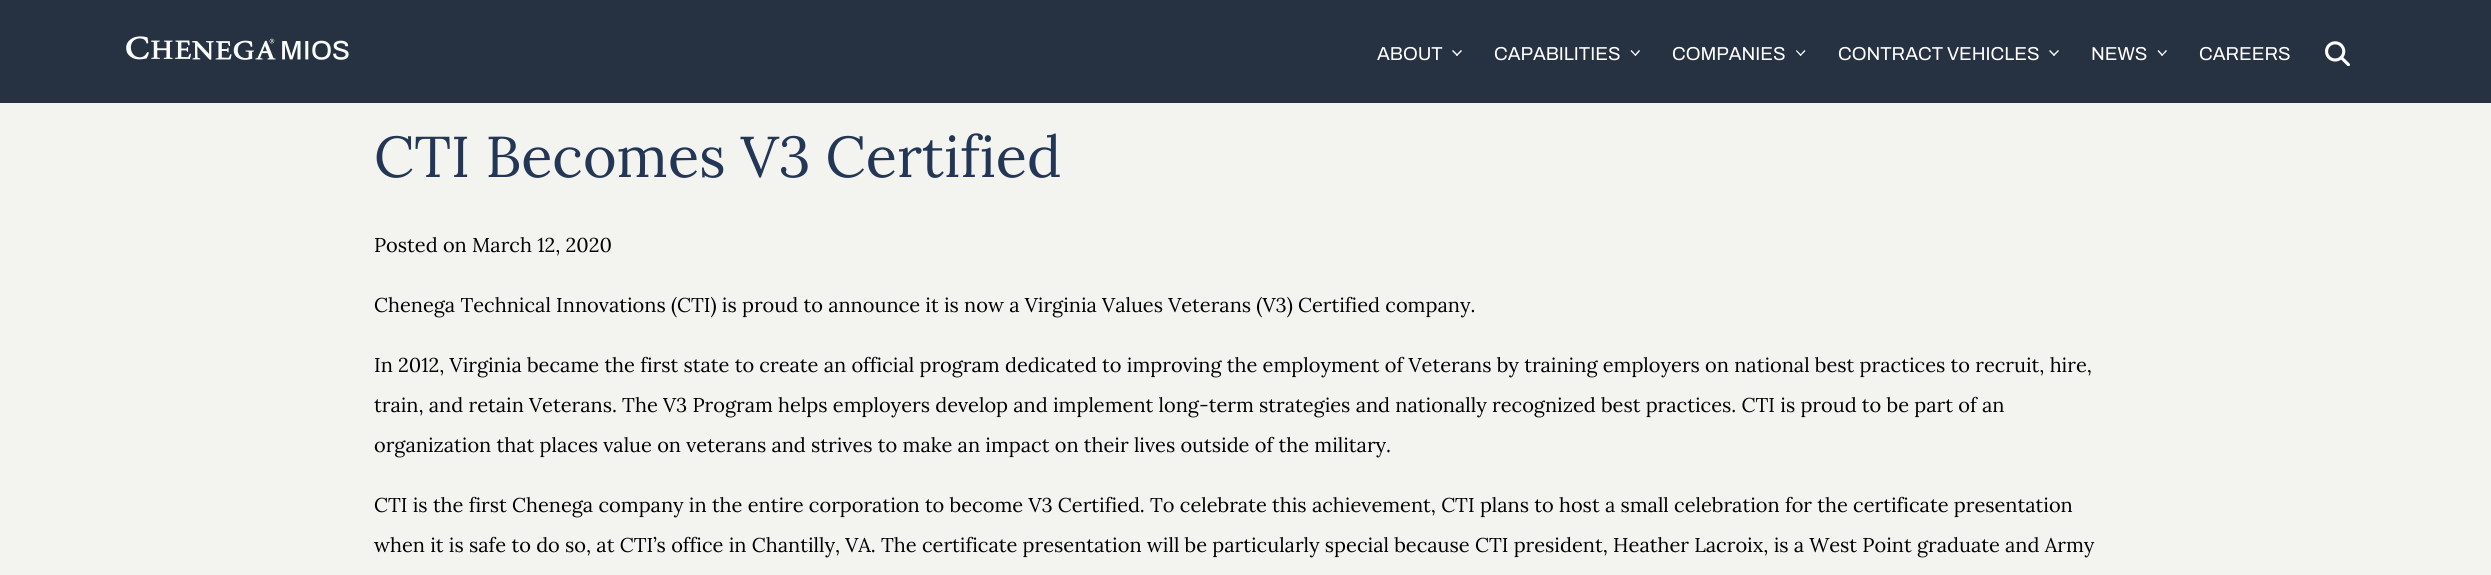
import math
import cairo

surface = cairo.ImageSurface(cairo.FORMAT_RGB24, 2491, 575)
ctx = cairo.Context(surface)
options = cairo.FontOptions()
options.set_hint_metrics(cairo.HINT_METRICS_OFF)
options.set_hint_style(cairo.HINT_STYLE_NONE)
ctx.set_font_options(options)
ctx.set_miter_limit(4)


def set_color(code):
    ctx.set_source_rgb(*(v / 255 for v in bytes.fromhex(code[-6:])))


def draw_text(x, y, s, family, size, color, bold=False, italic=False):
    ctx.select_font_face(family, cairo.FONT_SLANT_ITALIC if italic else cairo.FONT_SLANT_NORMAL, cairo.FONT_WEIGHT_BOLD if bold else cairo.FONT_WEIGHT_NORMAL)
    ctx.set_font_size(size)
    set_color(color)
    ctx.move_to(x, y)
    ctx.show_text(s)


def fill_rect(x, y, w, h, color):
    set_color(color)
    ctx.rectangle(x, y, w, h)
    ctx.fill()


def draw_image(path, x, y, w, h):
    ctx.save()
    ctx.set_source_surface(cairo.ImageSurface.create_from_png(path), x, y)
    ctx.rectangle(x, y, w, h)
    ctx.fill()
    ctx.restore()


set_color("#f3f3f0")
ctx.paint()
fill_rect(0, 0, 2491, 103, "#263142")
draw_image("assets/img1.png", 126, 36, 223, 24)
draw_text(1377, 60, "ABOUT", "Archivo", 18.75, "#ffffff")
ctx.new_path()
ctx.move_to(1461, 50)
ctx.line_to(1462, 51)
ctx.line_to(1457, 56)
ctx.line_to(1456, 55)
ctx.close_path()
ctx.fill()
ctx.new_path()
ctx.move_to(1453, 50)
ctx.line_to(1458, 55)
ctx.line_to(1457, 56)
ctx.line_to(1452, 51)
ctx.close_path()
ctx.fill()
draw_text(1494, 60, "CAPABILITIES", "Archivo", 18.75, "#ffffff")
ctx.new_path()
ctx.move_to(1639, 50)
ctx.line_to(1640, 51)
ctx.line_to(1635.5, 56)
ctx.line_to(1634.5, 55)
ctx.close_path()
ctx.fill()
ctx.new_path()
ctx.move_to(1631.5, 50)
ctx.line_to(1636, 55)
ctx.line_to(1635.5, 56)
ctx.line_to(1630.5, 51)
ctx.close_path()
ctx.fill()
draw_text(1672, 60, "COMPANIES", "Archivo", 18.75, "#ffffff")
ctx.new_path()
ctx.move_to(1804.5, 50)
ctx.line_to(1805.5, 51)
ctx.line_to(1800.5, 56)
ctx.line_to(1800, 55)
ctx.close_path()
ctx.fill()
ctx.new_path()
ctx.move_to(1796.5, 50)
ctx.line_to(1801.5, 55)
ctx.line_to(1800.5, 56)
ctx.line_to(1796, 51)
ctx.close_path()
ctx.fill()
draw_text(1838, 60, "CONTRACT VEHICLES", "Archivo", 18.75, "#ffffff")
ctx.new_path()
ctx.move_to(2058, 50)
ctx.line_to(2059, 51)
ctx.line_to(2054, 56)
ctx.line_to(2053, 55)
ctx.close_path()
ctx.fill()
ctx.new_path()
ctx.move_to(2050, 50)
ctx.line_to(2055, 55)
ctx.line_to(2054, 56)
ctx.line_to(2049, 51)
ctx.close_path()
ctx.fill()
draw_text(2091, 60, "NEWS", "Archivo", 18.75, "#ffffff")
ctx.new_path()
ctx.move_to(2166, 50)
ctx.line_to(2167, 51)
ctx.line_to(2162, 56)
ctx.line_to(2161.5, 55)
ctx.close_path()
ctx.fill()
ctx.new_path()
ctx.move_to(2158.5, 50)
ctx.line_to(2163, 55)
ctx.line_to(2162, 56)
ctx.line_to(2157.5, 51)
ctx.close_path()
ctx.fill()
draw_text(2199, 60, "CAREERS", "Archivo", 18.75, "#ffffff")
draw_image("assets/img2.png", 2325, 41, 25, 25)
draw_text(374, 177, "CTI Becomes V3 Certified", "Lora", 57.5, "#233655")
draw_text(374, 252, "Posted on March 12, 2020", "Lora", 20, "#000000")
draw_text(374, 312, "Chenega Technical Innovations (CTI) is proud to announce it is now a Virginia Values Veterans (V3) Certified company.", "Lora", 20, "#000000")
draw_text(374, 372, "In 2012, Virginia became the first state to create an official program dedicated to improving the employment of Veterans by training employers on national best practices to recruit, hire,", "Lora", 20, "#000000")
draw_text(374, 412, "train, and retain Veterans. The V3 Program helps employers develop and implement long-term strategies and nationally recognized best practices. CTI is proud to be part of an", "Lora", 20, "#000000")
draw_text(374, 452, "organization that places value on veterans and strives to make an impact on their lives outside of the military.", "Lora", 20, "#000000")
draw_text(374, 512, "CTI is the first Chenega company in the entire corporation to become V3 Certified. To celebrate this achievement, CTI plans to host a small celebration for the certificate presentation", "Lora", 20, "#000000")
draw_text(374, 552, "when it is safe to do so, at CTI’s office in Chantilly, VA. The certificate presentation will be particularly special because CTI president, Heather Lacroix, is a West Point graduate and Army", "Lora", 20, "#000000")
surface.write_to_png("output.png")
